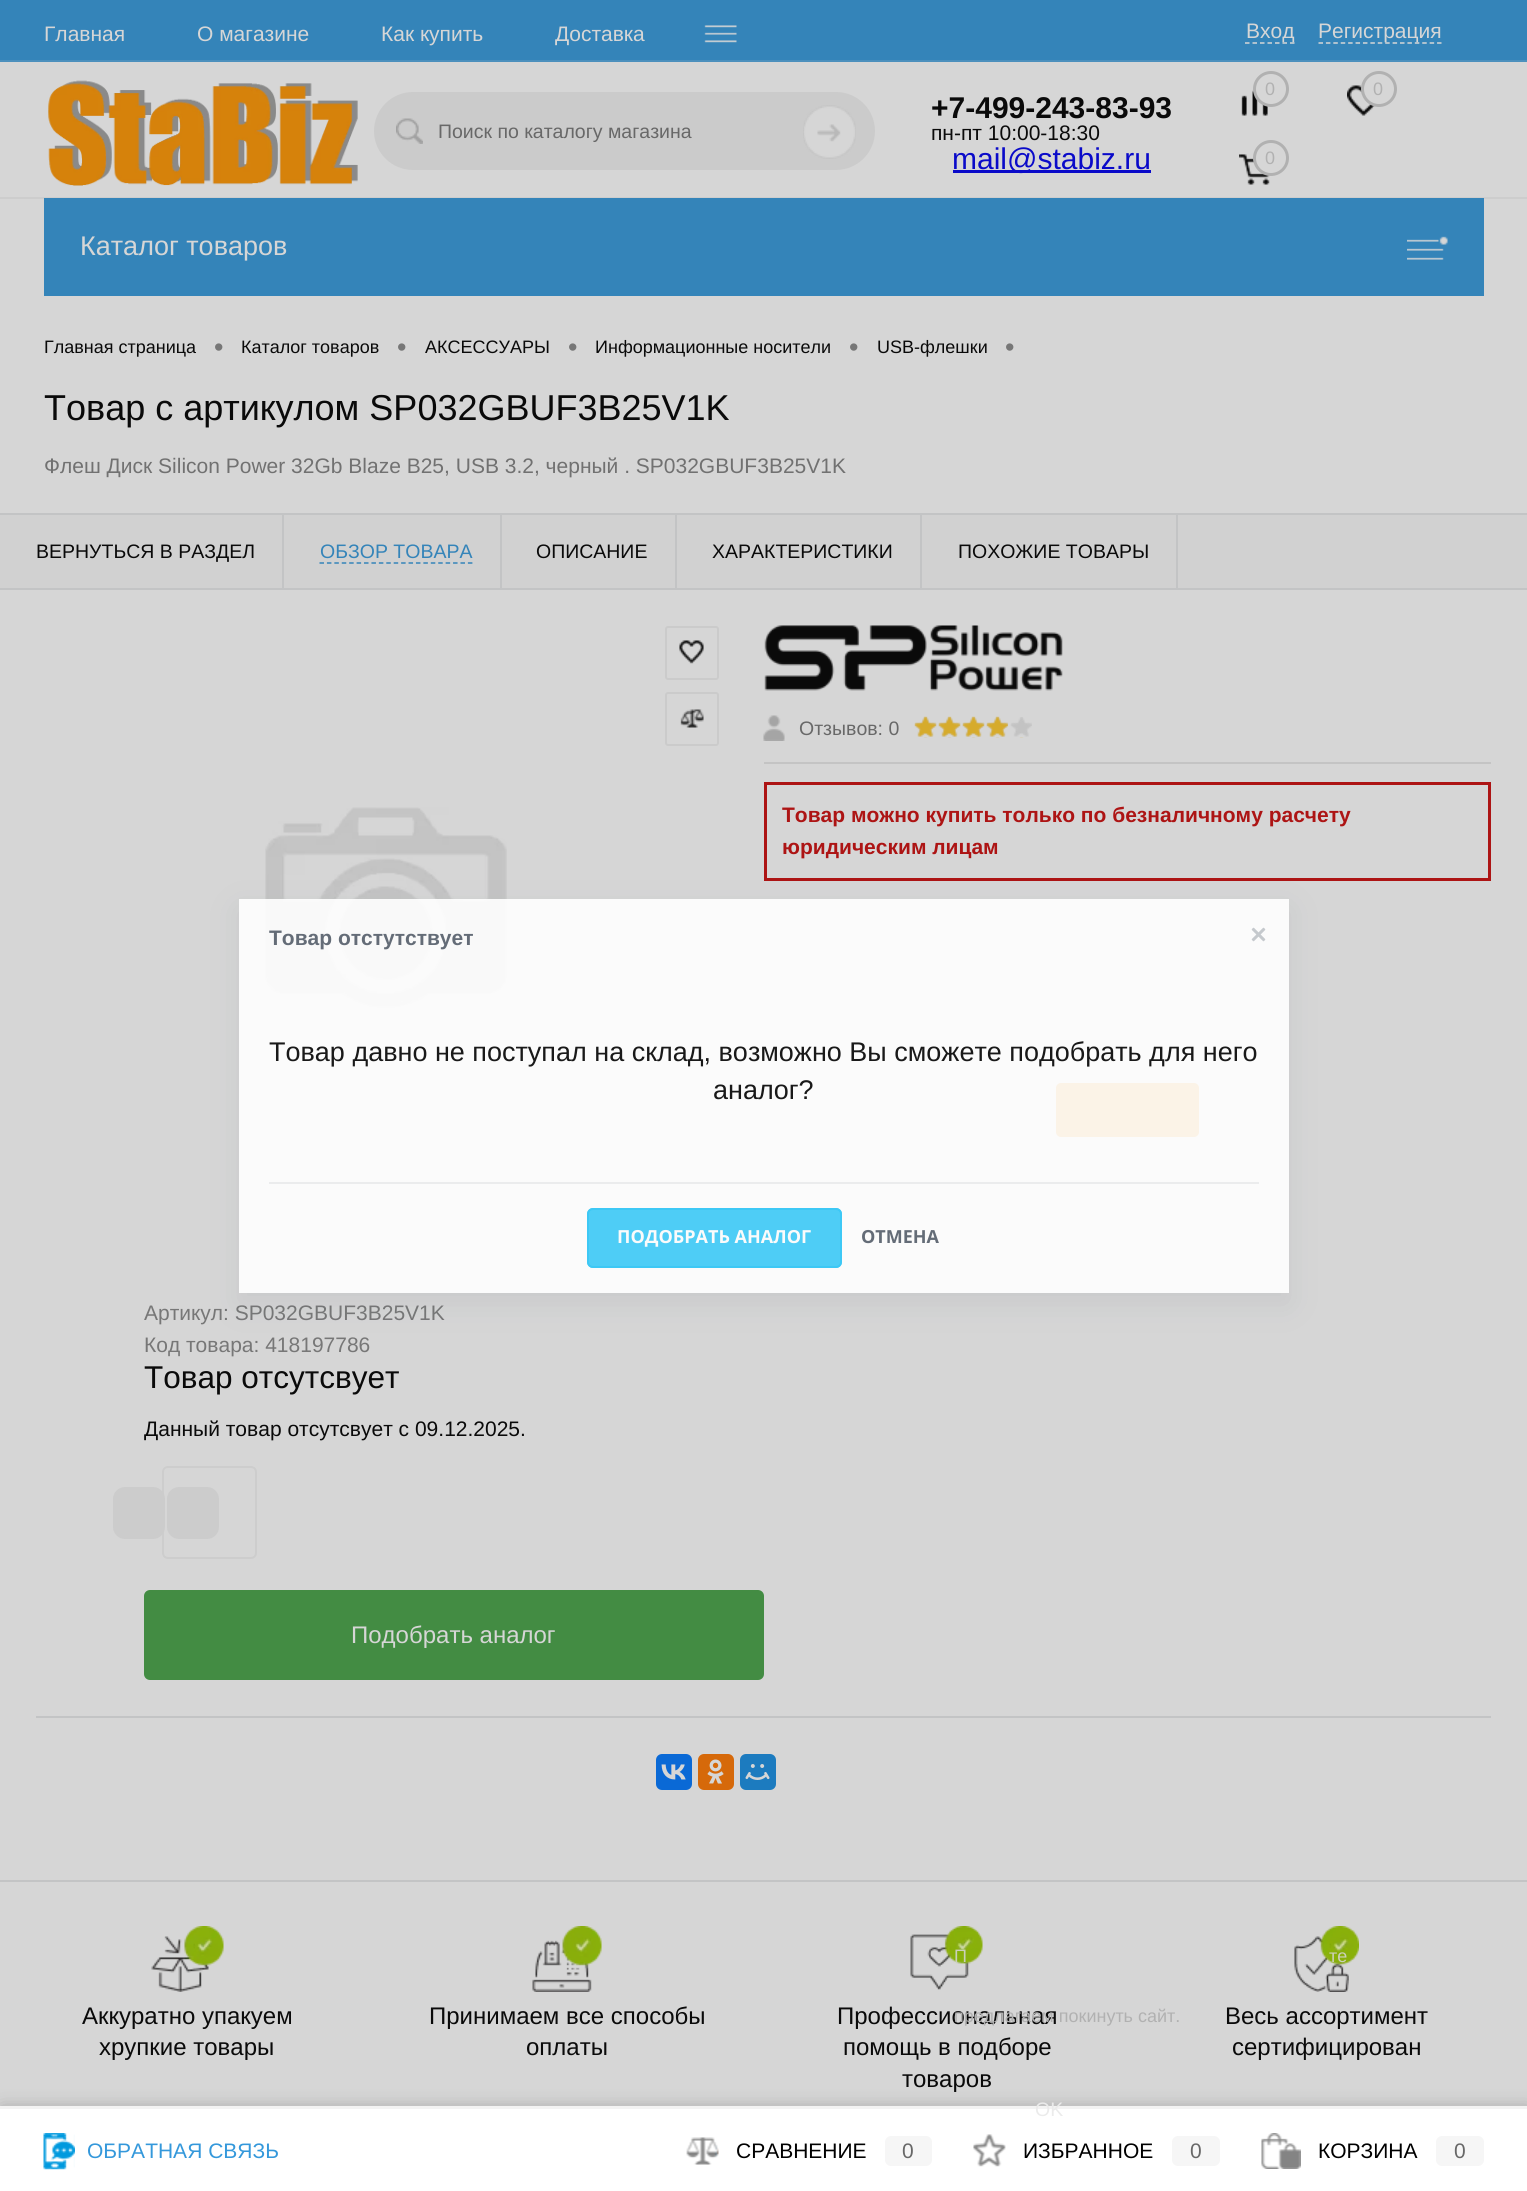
import math
import cairo

surface = cairo.ImageSurface(cairo.FORMAT_RGB24, 1527, 2191)
ctx = cairo.Context(surface)
options = cairo.FontOptions()
options.set_hint_metrics(cairo.HINT_METRICS_OFF)
options.set_hint_style(cairo.HINT_STYLE_NONE)
ctx.set_font_options(options)
ctx.set_miter_limit(4)


def set_color(code):
    ctx.set_source_rgb(*(v / 255 for v in bytes.fromhex(code[-6:])))


def draw_text(x, y, s, family, size, color, bold=False, italic=False):
    ctx.select_font_face(family, cairo.FONT_SLANT_ITALIC if italic else cairo.FONT_SLANT_NORMAL, cairo.FONT_WEIGHT_BOLD if bold else cairo.FONT_WEIGHT_NORMAL)
    ctx.set_font_size(size)
    set_color(color)
    ctx.move_to(x, y)
    ctx.show_text(s)


def fill_rect(x, y, w, h, color):
    set_color(color)
    ctx.rectangle(x, y, w, h)
    ctx.fill()


def rounded_rect(x, y, w, h, r):
    ctx.new_sub_path()
    for i, (u, v) in enumerate([(x + w - r, y + h - r), (x + r, y + h - r), (x + r, y + r), (x + w - r, y + r)]):
        ctx.arc(u, v, r, i * math.pi / 2, (i + 1) * math.pi / 2)
    ctx.close_path()


def draw_shadow(x, y, w, h, r, blur, alpha):
    ctx.push_group_with_content(cairo.CONTENT_ALPHA)
    ctx.set_operator(cairo.OPERATOR_SOURCE)
    for i in range(15, -16, -2):
        e = blur * i / 6
        if min(w, h) + 2 * e > 0:
            ctx.set_source_rgba(0, 0, 0, alpha * math.erfc((i - 1) / 8.5) / 2)
            rounded_rect(x - e, y - e, w + 2 * e, h + 2 * e, max(0, min(r + e + blur * .6, min(w, h) / 2 + e)))
            ctx.fill()
    ctx.mask(ctx.pop_group())


def draw_image(path, x, y, w, h):
    ctx.save()
    ctx.set_source_surface(cairo.ImageSurface.create_from_png(path), x, y)
    ctx.rectangle(x, y, w, h)
    ctx.fill()
    ctx.restore()


set_color("#d6d6d6")
ctx.paint()
fill_rect(0, 0, 1527, 60, "#3484b9")
fill_rect(0, 60, 1527, 2, "#4c90bd")
draw_text(44, 41, "Главная", "Liberation Sans", 21, "#d6d6d6")
draw_text(197, 41, "О магазине", "Liberation Sans", 21, "#d6d6d6")
draw_text(381, 41, "Как купить", "Liberation Sans", 21, "#d6d6d6")
draw_text(555, 41, "Доставка", "Liberation Sans", 21, "#d6d6d6")
draw_image("assets/img1.png", 704, 25, 33, 18)
draw_text(1246, 38, "Вход", "Liberation Sans", 21, "#d6d6d6")
ctx.new_path()
ctx.move_to(1245, 43)
ctx.line_to(1294.5, 43)
ctx.set_line_width(1.5)
ctx.set_dash([4.5, 3])
ctx.stroke()
draw_text(1318, 38, "Регистрация", "Liberation Sans", 21, "#d6d6d6")
ctx.new_path()
ctx.move_to(1318.5, 43)
ctx.line_to(1441.5, 43)
ctx.set_dash([4.5, 2.91])
ctx.stroke()
fill_rect(0, 197, 1527, 2, "#cdcdcd")
draw_image("assets/img2.png", 48, 80, 310, 106)
set_color("#cbcbcb")
rounded_rect(374, 92, 501, 78, 39)
ctx.fill()
draw_image("assets/img3.png", 396, 118, 27, 26)
draw_text(438, 138, "Поиск по каталогу магазина", "Liberation Sans", 19.5, "#686868")
draw_image("assets/img4.png", 803, 105, 53, 54)
draw_text(931, 118, "+7-499-243-83-93", "Liberation Sans", 30, "#0a0a0a", bold=True)
draw_text(931, 140, "пн-пт 10:00-18:30", "Liberation Sans", 21, "#0a0a0a")
fill_rect(953, 170, 198, 3, "#0a0ac9")
draw_text(952, 169, "mail@stabiz.ru", "Liberation Sans", 30, "#0a0ac9")
draw_image("assets/img5.png", 1241, 89, 27, 27)
set_color("#d6d6d6")
ctx.arc(1271, 89, 16.5, 0, 2 * math.pi)
ctx.fill_preserve()
set_color("#b1b1b1")
ctx.set_line_width(3)
ctx.set_dash([])
ctx.stroke()
draw_text(1265, 95, "0", "Liberation Sans", 18, "#b1b1b1")
draw_image("assets/img6.png", 1347, 85, 28, 31)
set_color("#d6d6d6")
ctx.arc(1379, 89, 16.5, 0, 2 * math.pi)
ctx.fill_preserve()
set_color("#b1b1b1")
ctx.stroke()
draw_text(1373, 95, "0", "Liberation Sans", 18, "#b1b1b1")
draw_image("assets/img7.png", 1239, 154, 31, 31)
set_color("#d6d6d6")
ctx.arc(1271, 158, 16.5, 0, 2 * math.pi)
ctx.fill_preserve()
set_color("#b1b1b1")
ctx.stroke()
draw_text(1265, 164, "0", "Liberation Sans", 18, "#b1b1b1")
fill_rect(44, 198, 1440, 98, "#3484b9")
draw_text(80, 255, "Каталог товаров", "Liberation Sans", 27, "#d6d6d6")
draw_image("assets/img8.png", 1407, 236, 41, 24)
draw_text(44, 353, "Главная страница", "Liberation Sans", 18, "#0a0a0a")
draw_text(214, 356, "•", "Liberation Sans", 27, "#777777")
draw_text(241, 353, "Каталог товаров", "Liberation Sans", 18, "#0a0a0a")
draw_text(397, 356, "•", "Liberation Sans", 27, "#777777")
draw_text(425, 353, "АКСЕССУАРЫ", "Liberation Sans", 18, "#0a0a0a")
draw_text(568, 356, "•", "Liberation Sans", 27, "#777777")
draw_text(595, 353, "Информационные носители", "Liberation Sans", 18, "#0a0a0a")
draw_text(849, 356, "•", "Liberation Sans", 27, "#777777")
draw_text(877, 353, "USB-флешки", "Liberation Sans", 18, "#0a0a0a")
draw_text(1005, 356, "•", "Liberation Sans", 27, "#777777")
draw_text(44, 420, "Товар с артикулом SP032GBUF3B25V1K", "Liberation Sans", 36, "#0a0a0a")
draw_text(44, 473, "Флеш Диск Silicon Power 32Gb Blaze B25, USB 3.2, черный . SP032GBUF3B25V1K", "Liberation Sans", 21, "#717171")
fill_rect(0, 513, 1527, 2, "#c3c4c5")
fill_rect(0, 515, 1527, 73, "#d1d1d1")
fill_rect(0, 588, 1527, 2, "#c3c4c5")
fill_rect(282, 515, 2, 73, "#c3c4c5")
draw_text(36, 558, "ВЕРНУТЬСЯ В РАЗДЕЛ", "Liberation Sans", 19.5, "#0a0a0a")
fill_rect(500, 515, 2, 73, "#c3c4c5")
draw_text(320, 558, "ОБЗОР ТОВАРА", "Liberation Sans", 19.5, "#3484b9")
ctx.new_path()
ctx.move_to(319.5, 563)
ctx.line_to(472.5, 563)
ctx.set_line_width(1.5)
ctx.set_dash([4.5, 2.92])
ctx.stroke()
fill_rect(675, 515, 2, 73, "#c3c4c5")
draw_text(536, 558, "ОПИСАНИЕ", "Liberation Sans", 19.5, "#0a0a0a")
fill_rect(920, 515, 2, 73, "#c3c4c5")
draw_text(712, 558, "ХАРАКТЕРИСТИКИ", "Liberation Sans", 19.5, "#0a0a0a")
fill_rect(1176, 515, 2, 73, "#c3c4c5")
draw_text(958, 558, "ПОХОЖИЕ ТОВАРЫ", "Liberation Sans", 19.5, "#0a0a0a")
rounded_rect(666, 627, 52, 52, 2)
set_color("#cbcbcb")
ctx.set_line_width(2)
ctx.set_dash([])
ctx.stroke()
draw_image("assets/img9.png", 679, 640, 25, 24)
rounded_rect(666, 693, 52, 52, 2)
ctx.stroke()
draw_image("assets/img10.png", 680, 709, 24, 19)
draw_image("assets/img11.png", 265, 807, 242, 201)
draw_image("assets/img12.png", 764, 625, 299, 66)
fill_rect(764, 762, 727, 2, "#c4c4c4")
draw_image("assets/img13.png", 763, 715, 22, 26)
draw_text(799, 735, "Отзывов: 0", "Liberation Sans", 19.5, "#686868")
draw_image("assets/img15.png", 915, 717, 117, 21)
draw_image("assets/img14.png", 914, 716, 94, 21)
ctx.rectangle(765.5, 783.5, 724, 96)
set_color("#ad1414")
ctx.set_line_width(3)
ctx.stroke()
draw_text(782, 822, "Товар можно купить только по безналичному расчету", "Liberation Sans", 21, "#ad1414", bold=True)
draw_text(782, 854, "юридическим лицам", "Liberation Sans", 21, "#ad1414", bold=True)
set_color("#d6820b")
rounded_rect(1056, 1083, 143, 54, 5)
ctx.fill()
draw_text(144, 1320, "Артикул: SP032GBUF3B25V1K", "Liberation Sans", 21, "#777777")
draw_text(144, 1352, "Код товара: 418197786", "Liberation Sans", 21, "#777777")
draw_text(144, 1388, "Товар отсутсвует", "Liberation Sans", 31.5, "#0a0a0a")
draw_text(144, 1436, "Данный товар отсутсвует с 09.12.2025.", "Liberation Sans", 21, "#0a0a0a")
rounded_rect(163, 1467, 93, 91, 5)
set_color("#cdcdcd")
ctx.set_line_width(2)
ctx.stroke()
set_color("#cccccc")
rounded_rect(113, 1487, 52, 52, 12)
ctx.fill()
rounded_rect(167, 1487, 52, 52, 12)
ctx.fill()
set_color("#438c43")
rounded_rect(144, 1590, 620, 90, 6)
ctx.fill()
draw_text(351, 1643, "Подобрать аналог", "Liberation Sans", 24, "#d6d6d6")
fill_rect(36, 1716, 1455, 2, "#c3c4c5")
set_color("#0a69d6")
rounded_rect(656, 1754, 36, 36, 6)
ctx.fill()
draw_image("assets/img16.png", 661, 1764, 25, 16)
set_color("#d6690a")
rounded_rect(698, 1754, 36, 36, 6)
ctx.fill()
draw_image("assets/img17.png", 707, 1759, 17, 25)
set_color("#1c7bbf")
rounded_rect(740, 1754, 36, 36, 6)
ctx.fill()
draw_image("assets/img18.png", 745, 1764, 25, 16)
fill_rect(0, 1880, 1527, 2, "#c3c4c5")
draw_image("assets/img19.png", 151, 1926, 73, 66)
draw_text(82, 2024, "Аккуратно упакуем", "Liberation Sans", 24, "#0a0a0a")
draw_text(99, 2055, "хрупкие товары", "Liberation Sans", 24, "#0a0a0a")
draw_image("assets/img20.png", 532, 1926, 70, 66)
draw_text(429, 2024, "Принимаем все способы", "Liberation Sans", 24, "#0a0a0a")
draw_text(526, 2055, "оплаты", "Liberation Sans", 24, "#0a0a0a")
draw_image("assets/img21.png", 910, 1926, 73, 64)
draw_text(837, 2024, "Профессиональная", "Liberation Sans", 24, "#0a0a0a")
draw_text(843, 2055, "помощь в подборе", "Liberation Sans", 24, "#0a0a0a")
draw_text(902, 2087, "товаров", "Liberation Sans", 24, "#0a0a0a")
draw_image("assets/img22.png", 1294, 1926, 65, 66)
draw_text(1225, 2024, "Весь ассортимент", "Liberation Sans", 24, "#0a0a0a")
draw_text(1232, 2055, "сертифицирован", "Liberation Sans", 24, "#0a0a0a")
set_color("#000000")
draw_shadow(2, 2108, 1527, 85, 0, 9, 0.25)
fill_rect(0, 2109, 1527, 82, "#ffffff")
fill_rect(0, 2106, 1527, 3, "#f3f3f3")
draw_image("assets/img23.png", 43, 2133, 32, 37)
draw_text(87, 2158, "ОБРАТНАЯ СВЯЗЬ", "Liberation Sans", 21, "#3498db")
draw_image("assets/img24.png", 686, 2137, 33, 28)
draw_text(736, 2158, "СРАВНЕНИЕ", "Liberation Sans", 21, "#000000")
set_color("#f6f6f6")
rounded_rect(885, 2136, 47, 30, 6)
ctx.fill()
draw_text(902, 2158, "0", "Liberation Sans", 21, "#686868")
draw_image("assets/img25.png", 973, 2134, 33, 33)
draw_text(1023, 2158, "ИЗБРАННОЕ", "Liberation Sans", 21, "#000000")
set_color("#f6f6f6")
rounded_rect(1172, 2136, 48, 30, 6)
ctx.fill()
draw_text(1190, 2158, "0", "Liberation Sans", 21, "#686868")
draw_image("assets/img26.png", 1261, 2133, 40, 36)
draw_text(1318, 2158, "КОРЗИНА", "Liberation Sans", 21, "#000000")
set_color("#f6f6f6")
rounded_rect(1436, 2136, 48, 30, 6)
ctx.fill()
draw_text(1454, 2158, "0", "Liberation Sans", 21, "#686868")
ctx.save()
ctx.set_fill_rule(cairo.FILL_RULE_EVEN_ODD)
ctx.new_path()
ctx.move_to(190, 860)
ctx.line_to(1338, 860)
ctx.line_to(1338, 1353)
ctx.line_to(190, 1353)
ctx.close_path()
ctx.move_to(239, 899)
ctx.line_to(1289, 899)
ctx.line_to(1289, 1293)
ctx.line_to(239, 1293)
ctx.close_path()
ctx.clip()
set_color("#535c69")
draw_shadow(239, 909, 1050, 395, 0, 16, 0.11)
ctx.restore()
ctx.set_source_rgba(1, 1, 1, 0.9)
ctx.rectangle(239, 899, 1050, 394)
ctx.fill()
draw_text(269, 945, "Товар отстутствует", "Liberation Sans", 21, "#646c77", bold=True)
draw_image("assets/img27.png", 1251, 927, 15, 15)
draw_text(269, 1061, "Товар давно не поступал на склад, возможно Вы сможете подобрать для него", "Liberation Sans", 27, "#191919")
draw_text(713, 1099, "аналог?", "Liberation Sans", 27, "#191919")
fill_rect(269, 1182, 990, 2, "#ebeced")
set_color("#4ecdf6")
rounded_rect(587, 1208, 255, 60, 6)
ctx.fill()
rounded_rect(588, 1209, 253, 58, 5)
ctx.set_source_rgba(0.231, 0.784, 0.961, 0.9)
ctx.stroke()
draw_text(617, 1243, "ПОДОБРАТЬ АНАЛОГ", "Open Sans", 18, "#fbfbfb", bold=True)
draw_text(861, 1243, "ОТМЕНА", "Open Sans", 18, "#646c77", bold=True)
draw_text(954, 1962, "П", "Liberation Sans", 18, "#cbd0bb")
draw_text(1329, 1962, "те", "Liberation Sans", 18, "#cbd0bb")
draw_text(954, 2022, "предлагаем покинуть сайт.", "Liberation Sans", 18, "#b1b1b1")
draw_text(1035, 2116, "OK", "Liberation Sans", 19.5, "#ebebeb")
surface.write_to_png("output.png")
